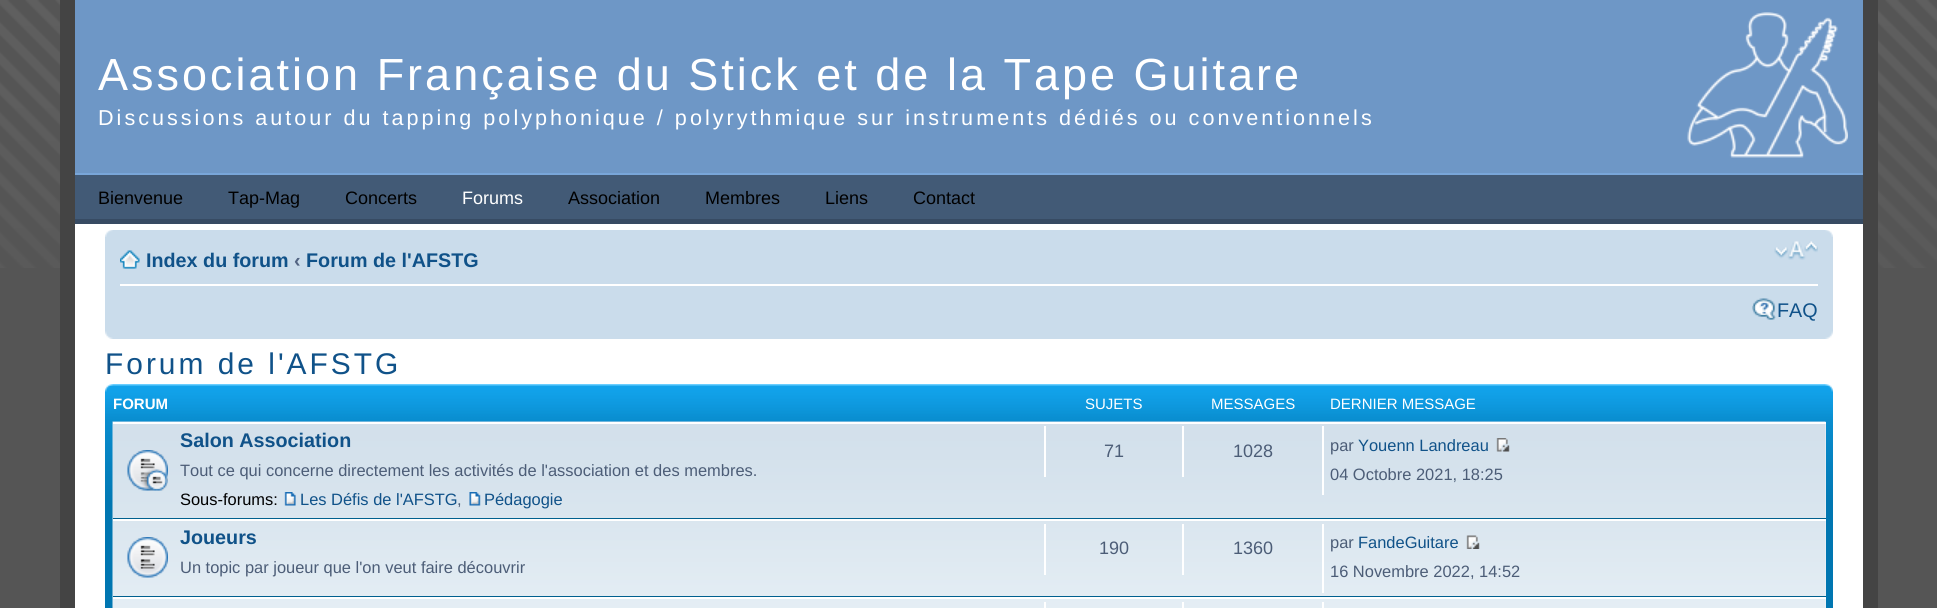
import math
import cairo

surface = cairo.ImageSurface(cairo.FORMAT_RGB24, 1937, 608)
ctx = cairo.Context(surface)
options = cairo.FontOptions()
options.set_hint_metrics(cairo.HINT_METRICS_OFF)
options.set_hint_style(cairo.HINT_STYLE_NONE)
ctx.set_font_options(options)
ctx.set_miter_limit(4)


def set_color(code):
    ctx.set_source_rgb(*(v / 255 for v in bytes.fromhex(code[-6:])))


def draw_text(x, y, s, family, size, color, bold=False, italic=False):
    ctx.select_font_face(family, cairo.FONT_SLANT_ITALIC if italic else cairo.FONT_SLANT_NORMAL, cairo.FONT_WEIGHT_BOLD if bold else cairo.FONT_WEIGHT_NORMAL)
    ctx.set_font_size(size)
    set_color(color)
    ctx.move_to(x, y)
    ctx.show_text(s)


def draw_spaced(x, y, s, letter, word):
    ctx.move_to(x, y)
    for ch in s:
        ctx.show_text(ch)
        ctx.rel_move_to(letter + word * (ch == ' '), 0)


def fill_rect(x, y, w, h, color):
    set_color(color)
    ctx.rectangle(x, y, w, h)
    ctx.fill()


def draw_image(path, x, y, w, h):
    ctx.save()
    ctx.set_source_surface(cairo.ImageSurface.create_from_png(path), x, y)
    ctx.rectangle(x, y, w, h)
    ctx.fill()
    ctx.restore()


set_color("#555555")
ctx.paint()
draw_image("assets/img1.png", 0, 0, 1937, 268)
fill_rect(75, 224, 1788, 384, "#ffffff")
fill_rect(1863, 0, 15, 608, "#444444")
fill_rect(60, 0, 15, 608, "#444444")
fill_rect(75, 0, 1788, 173, "#6e97c6")
fill_rect(75, 173, 1788, 2, "#79a6d9")
ctx.select_font_face("Liberation Sans")
ctx.set_font_size(45)
set_color("#ffffff")
draw_spaced(98, 90, "Association Française du Stick et de la Tape Guitare", 3, 0)
draw_image("assets/img2.png", 1687, 12, 161, 146)
ctx.set_font_size(21.6)
draw_spaced(98, 125, "Discussions autour du tapping polyphonique / polyrythmique sur instruments dédiés ou conventionnels", 3, 0)
fill_rect(75, 175, 1788, 44, "#425a76")
fill_rect(75, 219, 1788, 5, "#374b63")
draw_text(98, 204, "Bienvenue", "Liberation Sans", 18, "#000000")
draw_text(228, 204, "Tap-Mag", "Liberation Sans", 18, "#000000")
draw_text(345, 204, "Concerts", "Liberation Sans", 18, "#000000")
draw_text(462, 204, "Forums", "Liberation Sans", 18, "#ffffff")
draw_text(568, 204, "Association", "Liberation Sans", 18, "#000000")
draw_text(705, 204, "Membres", "Liberation Sans", 18, "#000000")
draw_text(825, 204, "Liens", "Liberation Sans", 18, "#000000")
draw_text(913, 204, "Contact", "Liberation Sans", 18, "#000000")
fill_rect(105, 230, 1728, 109, "#cadceb")
draw_image("assets/img3.png", 105, 230, 8, 7)
draw_image("assets/img4.png", 1825, 230, 8, 7)
fill_rect(120, 284, 1698, 2, "#ffffff")
draw_image("assets/img5.png", 120, 250, 20, 19)
draw_text(146, 267, "Index du forum", "Liberation Sans", 19.75, "#105289", bold=True)
draw_text(294, 267, "‹", "Liberation Sans", 19.75, "#536482", bold=True)
draw_text(306, 267, "Forum de l'AFSTG", "Liberation Sans", 19.75, "#105289", bold=True)
draw_image("assets/img6.png", 1774, 241, 44, 19)
draw_image("assets/img7.png", 1752, 298, 24, 22)
draw_text(1777, 317, "FAQ", "Liberation Sans", 19.75, "#105289")
draw_image("assets/img8.png", 105, 331, 8, 8)
draw_image("assets/img9.png", 1825, 331, 8, 8)
ctx.set_font_size(29.9)
draw_spaced(105, 374, "Forum de l'AFSTG", 3, 0)
fill_rect(105, 500, 1728, 108, "#0076b1")
draw_image("assets/img10.png", 105, 384, 1728, 116)
draw_image("assets/img11.png", 105, 384, 8, 8)
draw_image("assets/img12.png", 1825, 384, 8, 8)
draw_text(113, 409, "FORUM", "Liberation Sans", 15, "#ffffff", bold=True)
draw_text(1085, 409, "SUJETS", "Liberation Sans", 15, "#ffffff")
draw_text(1211, 409, "MESSAGES", "Liberation Sans", 15, "#ffffff")
draw_text(1330, 409, "DERNIER MESSAGE", "Liberation Sans", 15, "#ffffff")
fill_rect(1825, 424, 1, 184, "#eef5f9")
draw_image("assets/img13.png", 112, 421, 1714, 187)
fill_rect(113, 422, 1713, 2, "#ffffff")
fill_rect(113, 518, 1713, 1, "#00608f")
draw_image("assets/img14.png", 127, 450, 41, 41)
draw_text(180, 447, "Salon Association", "Liberation Sans", 19.75, "#105289", bold=True)
draw_text(180, 476, "Tout ce qui concerne directement les activités de l'association et des membres.", "Liberation Sans", 16.45, "#4c5d77")
draw_text(180, 505, "Sous-forums:", "Liberation Sans", 16.45, "#000000")
draw_image("assets/img15.png", 284, 492, 12, 14)
draw_text(300, 505, "Les Défis de l'AFSTG", "Liberation Sans", 16.45, "#105289")
draw_text(457, 505, ",", "Liberation Sans", 16.45, "#4c5d77")
draw_image("assets/img16.png", 469, 492, 12, 14)
draw_text(484, 505, "Pédagogie", "Liberation Sans", 16.45, "#105289")
fill_rect(1044, 426, 2, 51, "#ffffff")
draw_text(1104, 457, "71", "Liberation Sans", 18, "#4c5d77")
fill_rect(1182, 426, 2, 51, "#ffffff")
draw_text(1233, 457, "1028", "Liberation Sans", 18, "#4c5d77")
fill_rect(1322, 426, 2, 69, "#ffffff")
draw_text(1330, 451, "par", "Liberation Sans", 16.45, "#4c5d77")
draw_text(1358, 451, "Youenn Landreau", "Liberation Sans", 16.45, "#105289")
draw_image("assets/img17.png", 1496, 438, 14, 14)
draw_text(1330, 480, "04 Octobre 2021, 18:25", "Liberation Sans", 16.45, "#4c5d77")
fill_rect(113, 519, 1713, 2, "#ffffff")
fill_rect(113, 596, 1713, 1, "#00608f")
draw_image("assets/img18.png", 127, 537, 41, 41)
draw_text(180, 544, "Joueurs", "Liberation Sans", 19.75, "#105289", bold=True)
draw_text(180, 573, "Un topic par joueur que l'on veut faire découvrir", "Liberation Sans", 16.45, "#4c5d77")
fill_rect(1044, 524, 2, 51, "#ffffff")
draw_text(1099, 554, "190", "Liberation Sans", 18, "#4c5d77")
fill_rect(1182, 524, 2, 51, "#ffffff")
draw_text(1233, 554, "1360", "Liberation Sans", 18, "#4c5d77")
fill_rect(1322, 524, 2, 69, "#ffffff")
draw_text(1330, 548, "par", "Liberation Sans", 16.45, "#4c5d77")
draw_text(1358, 548, "FandeGuitare", "Liberation Sans", 16.45, "#105289")
draw_image("assets/img19.png", 1466, 535, 14, 14)
draw_text(1330, 577, "16 Novembre 2022, 14:52", "Liberation Sans", 16.45, "#4c5d77")
fill_rect(113, 597, 1713, 2, "#ffffff")
fill_rect(1044, 602, 2, 6, "#ffffff")
fill_rect(1182, 602, 2, 6, "#ffffff")
fill_rect(1322, 602, 2, 6, "#ffffff")
surface.write_to_png("output.png")
